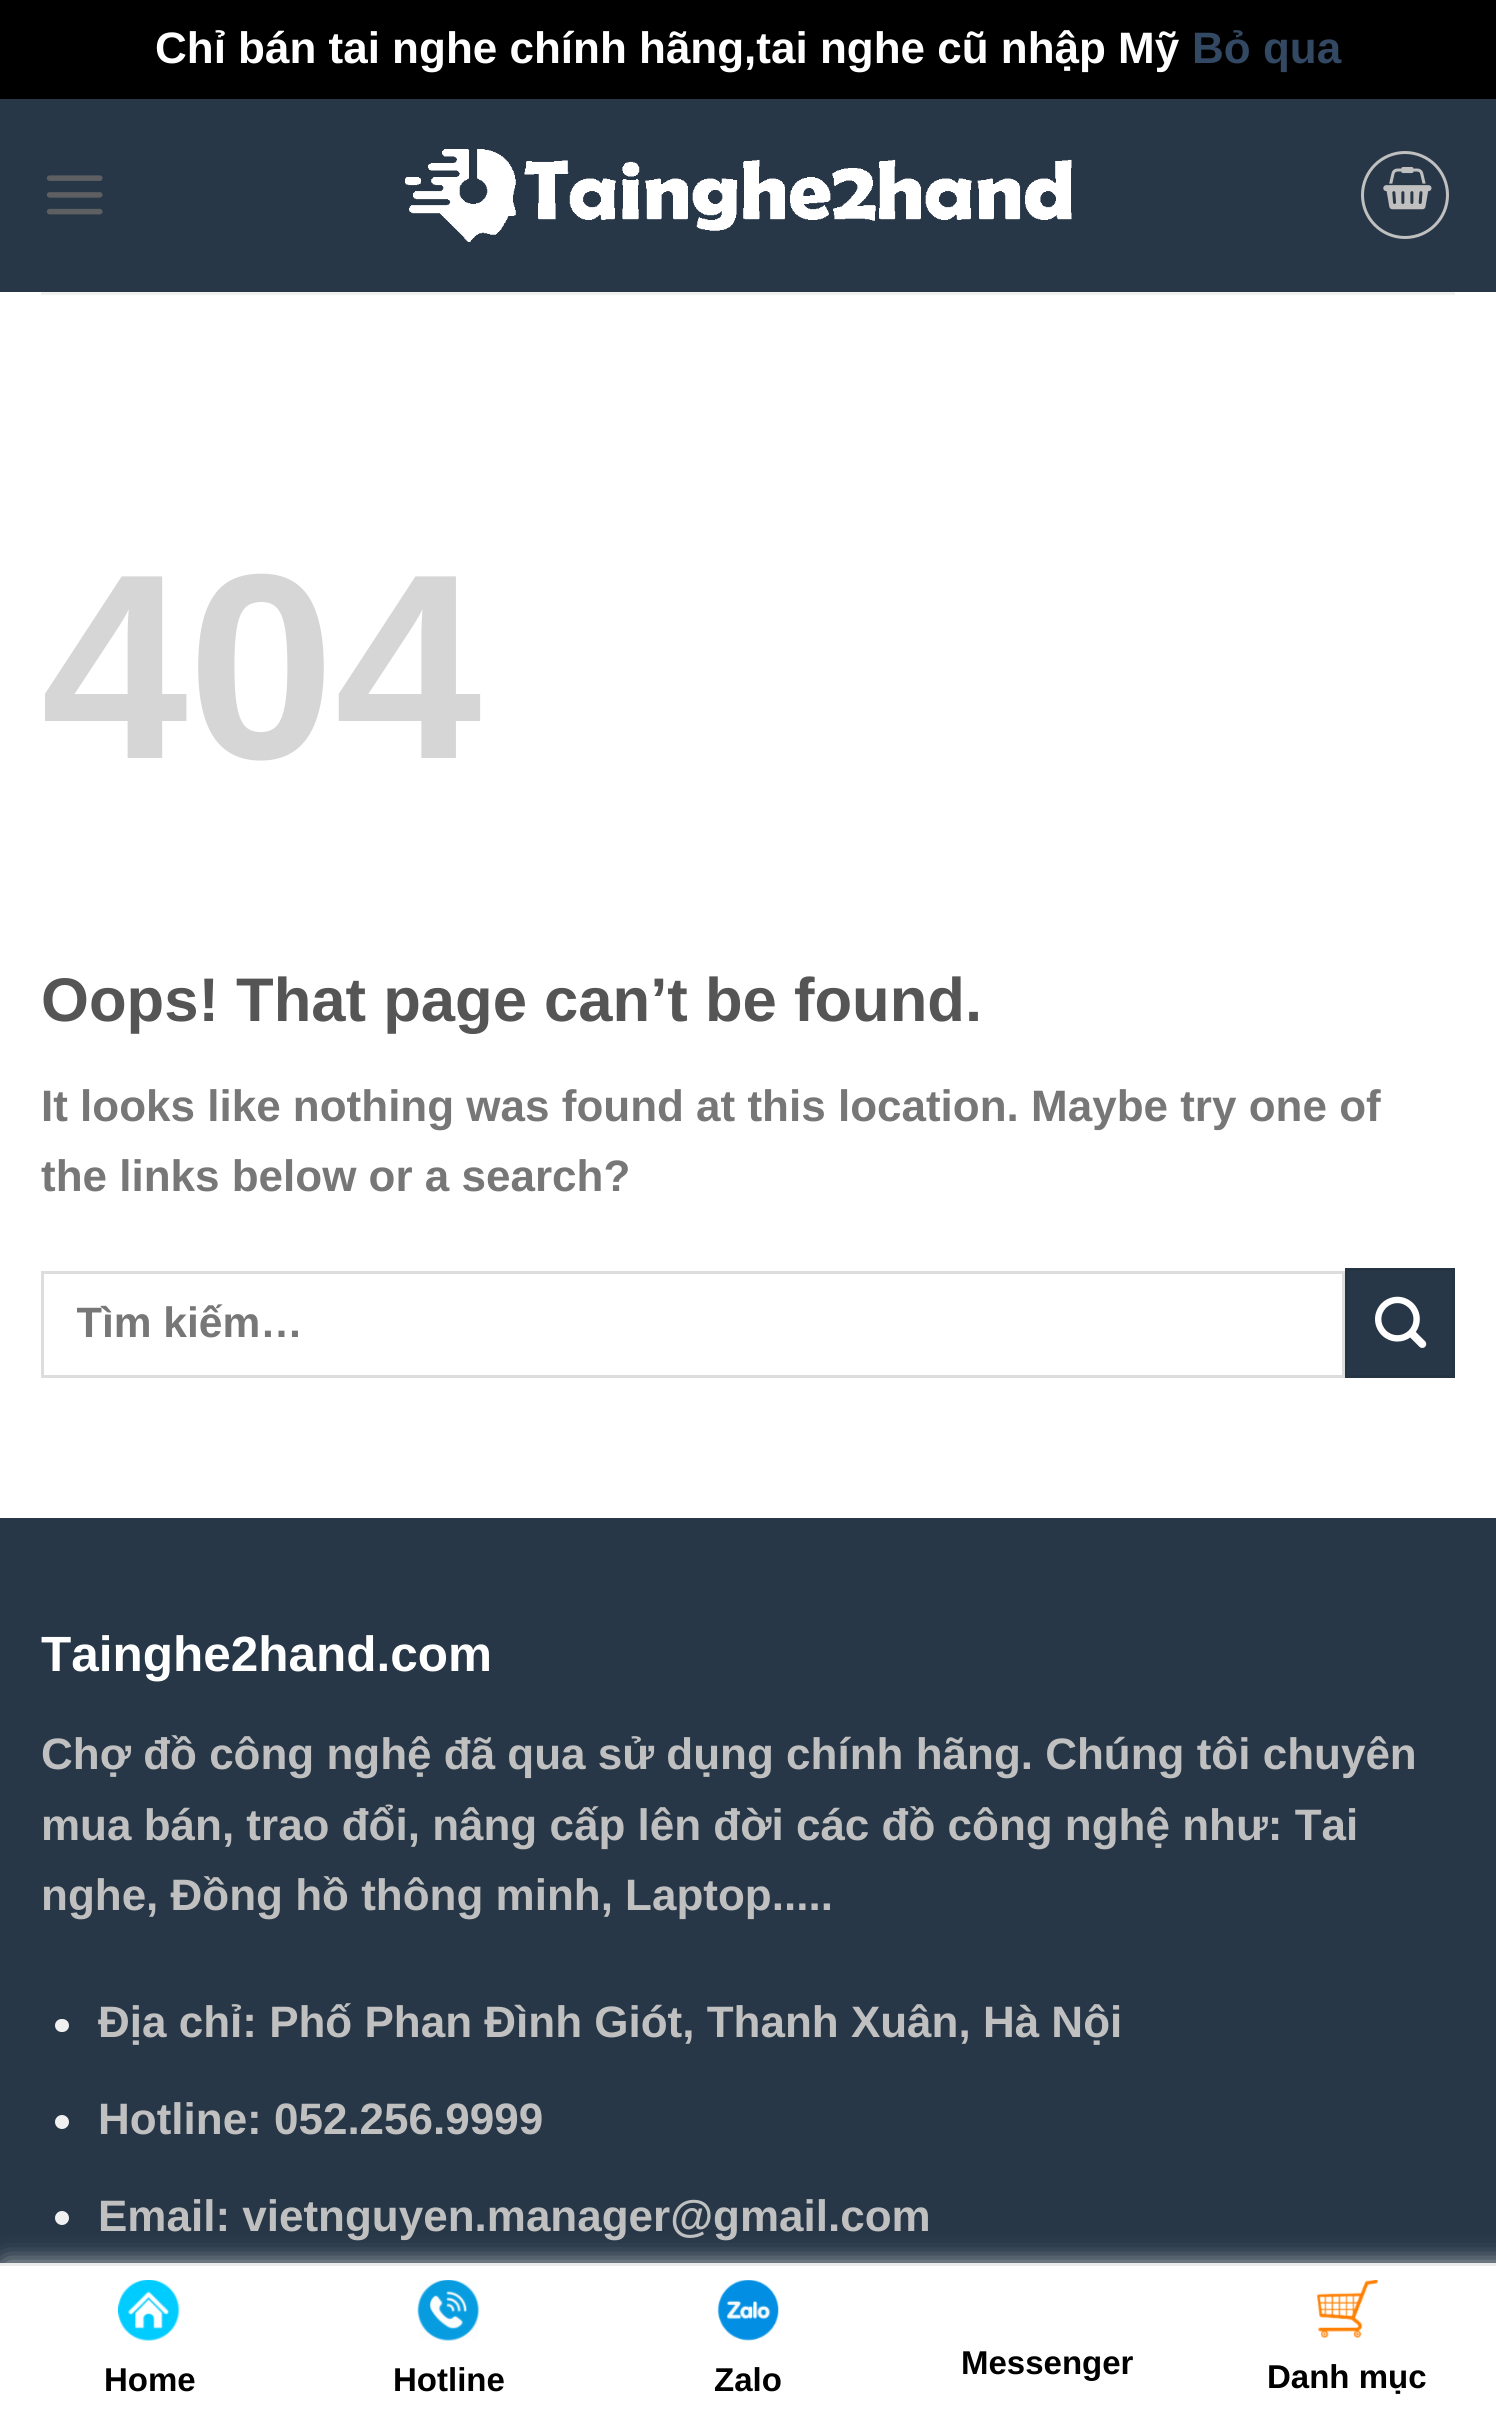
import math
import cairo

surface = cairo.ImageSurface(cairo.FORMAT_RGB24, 1496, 2421)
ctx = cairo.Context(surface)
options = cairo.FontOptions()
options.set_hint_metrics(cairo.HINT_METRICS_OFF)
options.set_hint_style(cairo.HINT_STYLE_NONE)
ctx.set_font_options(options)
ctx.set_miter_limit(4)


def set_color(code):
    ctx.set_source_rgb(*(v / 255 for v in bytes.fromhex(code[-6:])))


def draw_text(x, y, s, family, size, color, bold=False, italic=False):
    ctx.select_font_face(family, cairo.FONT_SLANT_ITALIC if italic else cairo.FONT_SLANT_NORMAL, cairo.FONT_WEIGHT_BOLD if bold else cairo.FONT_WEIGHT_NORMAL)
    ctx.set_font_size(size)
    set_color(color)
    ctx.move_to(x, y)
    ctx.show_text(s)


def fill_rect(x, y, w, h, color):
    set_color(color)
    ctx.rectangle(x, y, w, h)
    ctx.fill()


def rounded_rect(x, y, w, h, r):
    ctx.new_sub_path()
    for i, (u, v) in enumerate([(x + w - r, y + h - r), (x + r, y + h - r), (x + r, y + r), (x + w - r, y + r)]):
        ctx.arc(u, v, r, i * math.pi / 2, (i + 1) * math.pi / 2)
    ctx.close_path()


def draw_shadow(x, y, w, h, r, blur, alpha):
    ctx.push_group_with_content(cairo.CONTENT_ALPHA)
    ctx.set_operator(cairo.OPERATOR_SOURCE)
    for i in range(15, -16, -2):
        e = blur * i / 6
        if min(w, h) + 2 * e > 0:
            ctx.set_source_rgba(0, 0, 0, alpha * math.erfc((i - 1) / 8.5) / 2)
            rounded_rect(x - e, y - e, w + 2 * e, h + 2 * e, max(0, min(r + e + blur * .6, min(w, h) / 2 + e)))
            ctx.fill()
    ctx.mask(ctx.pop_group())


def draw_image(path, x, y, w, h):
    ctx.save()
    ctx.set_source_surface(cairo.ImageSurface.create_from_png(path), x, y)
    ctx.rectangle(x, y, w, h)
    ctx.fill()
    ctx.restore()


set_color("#000000")
ctx.paint()
draw_text(155, 63, "Chỉ bán tai nghe chính hãng,tai nghe cũ nhập Mỹ", "Liberation Sans", 44, "#ffffff", bold=True)
draw_text(1192, 63, "Bỏ qua", "Liberation Sans", 44, "#334862", bold=True)
fill_rect(0, 292, 1496, 1226, "#ffffff")
fill_rect(0, 99, 1496, 193, "#273747")
draw_image("assets/img1.png", 46, 175, 57, 40)
draw_image("assets/img2.png", 405, 149, 667, 93)
ctx.arc(1405, 195, 42.5, 0, 2 * math.pi)
set_color("#c0c0c0")
ctx.set_line_width(3)
ctx.stroke()
draw_image("assets/img3.png", 1383, 167, 49, 43)
fill_rect(41, 292, 1414, 3, "#f1f1f1")
draw_text(41, 758, "404", "Liberation Sans", 264, "#d6d6d6", bold=True)
draw_text(41, 1021, "Oops! That page can’t be found.", "Liberation Sans", 61.6, "#555555", bold=True)
draw_text(41, 1121, "It looks like nothing was found at this location. Maybe try one of", "Liberation Sans", 44, "#777777", bold=True)
draw_text(41, 1191, "the links below or a search?", "Liberation Sans", 44, "#777777", bold=True)
ctx.rectangle(42.5, 1272.5, 1301, 104)
set_color("#dddddd")
ctx.stroke()
ctx.save()
ctx.rectangle(77, 1298, 1224, 50)
ctx.clip()
draw_text(76, 1337, "Tìm kiếm…", "Liberation Sans", 42.5, "#777777", bold=True)
ctx.restore()
set_color("#273747")
ctx.rectangle(1346.5, 1269.5, 107, 107)
ctx.fill_preserve()
set_color("#253443")
ctx.stroke()
draw_image("assets/img4.png", 1375, 1296, 52, 52)
fill_rect(0, 1518, 1496, 745, "#273747")
draw_text(41, 1671, "Tainghe2hand.com", "Liberation Sans", 49.5, "#ffffff", bold=True)
draw_text(41, 1769, "Chợ đồ công nghệ đã qua sử dụng chính hãng. Chúng tôi chuyên", "Liberation Sans", 44, "#c0c0c0", bold=True)
draw_text(41, 1840, "mua bán, trao đổi, nâng cấp lên đời các đồ công nghệ như: Tai", "Liberation Sans", 44, "#c0c0c0", bold=True)
draw_text(41, 1910, "nghe, Đồng hồ thông minh, Laptop.....", "Liberation Sans", 44, "#c0c0c0", bold=True)
set_color("#f1f1f1")
rounded_rect(55, 2019, 14, 13, 6.5)
ctx.fill()
draw_text(98, 2037, "Địa chỉ: Phố Phan Đình Giót, Thanh Xuân, Hà Nội", "Liberation Sans", 44, "#c0c0c0", bold=True)
set_color("#f1f1f1")
ctx.new_path()
ctx.arc(62, 2122, 7, 0, 2 * math.pi)
ctx.fill()
draw_text(98, 2134, "Hotline: 052.256.9999", "Liberation Sans", 44, "#c0c0c0", bold=True)
set_color("#f1f1f1")
ctx.new_path()
ctx.arc(62, 2218, 7, 0, 2 * math.pi)
ctx.fill()
draw_text(98, 2231, "Email: vietnguyen.manager@gmail.com", "Liberation Sans", 44, "#c0c0c0", bold=True)
set_color("#dedede")
draw_shadow(6, 2266, 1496, 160, 0, 12.5, 1)
fill_rect(0, 2266, 1496, 155, "#ffffff")
fill_rect(0, 2263, 1496, 3, "#eaeaea")
draw_image("assets/img5.png", 118, 2280, 62, 61)
draw_text(104, 2391, "Home", "Liberation Sans", 33, "#000000", bold=True)
draw_image("assets/img6.png", 417, 2280, 63, 61)
draw_text(393, 2391, "Hotline", "Liberation Sans", 33, "#000000", bold=True)
draw_image("assets/img7.png", 717, 2280, 62, 61)
draw_text(714, 2391, "Zalo", "Liberation Sans", 33, "#000000", bold=True)
draw_text(961, 2374, "Messenger", "Liberation Sans", 33, "#000000", bold=True)
draw_image("assets/img8.png", 1317, 2280, 61, 58)
draw_text(1267, 2388, "Danh mục", "Liberation Sans", 33, "#000000", bold=True)
surface.write_to_png("output.png")
